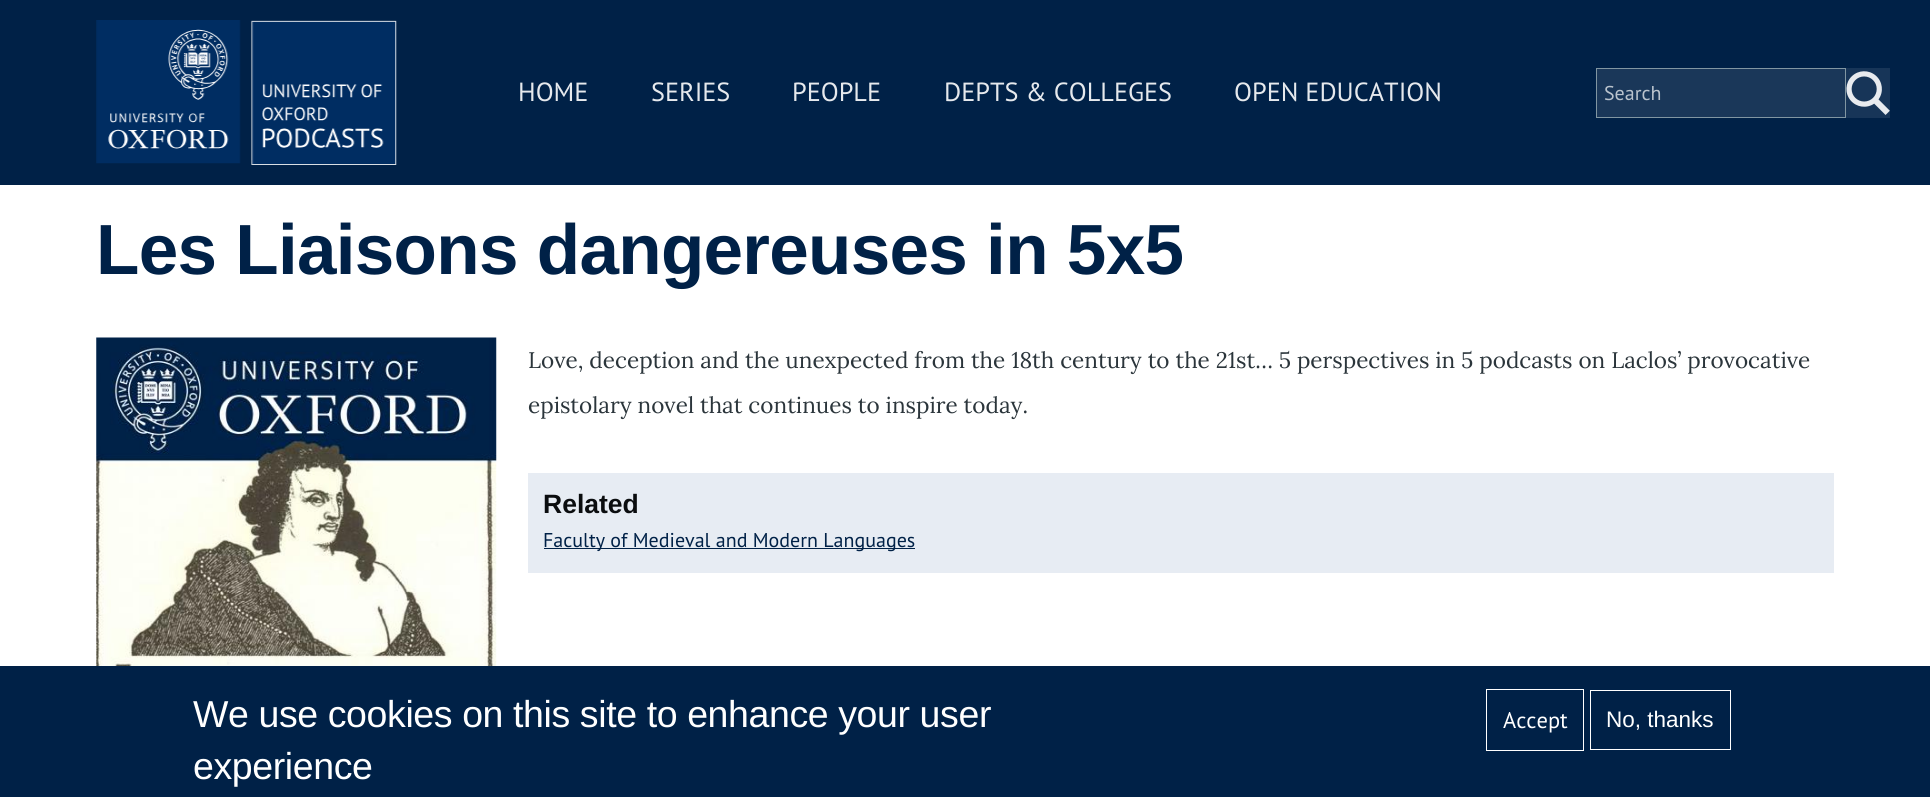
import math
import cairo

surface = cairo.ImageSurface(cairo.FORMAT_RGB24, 1930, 797)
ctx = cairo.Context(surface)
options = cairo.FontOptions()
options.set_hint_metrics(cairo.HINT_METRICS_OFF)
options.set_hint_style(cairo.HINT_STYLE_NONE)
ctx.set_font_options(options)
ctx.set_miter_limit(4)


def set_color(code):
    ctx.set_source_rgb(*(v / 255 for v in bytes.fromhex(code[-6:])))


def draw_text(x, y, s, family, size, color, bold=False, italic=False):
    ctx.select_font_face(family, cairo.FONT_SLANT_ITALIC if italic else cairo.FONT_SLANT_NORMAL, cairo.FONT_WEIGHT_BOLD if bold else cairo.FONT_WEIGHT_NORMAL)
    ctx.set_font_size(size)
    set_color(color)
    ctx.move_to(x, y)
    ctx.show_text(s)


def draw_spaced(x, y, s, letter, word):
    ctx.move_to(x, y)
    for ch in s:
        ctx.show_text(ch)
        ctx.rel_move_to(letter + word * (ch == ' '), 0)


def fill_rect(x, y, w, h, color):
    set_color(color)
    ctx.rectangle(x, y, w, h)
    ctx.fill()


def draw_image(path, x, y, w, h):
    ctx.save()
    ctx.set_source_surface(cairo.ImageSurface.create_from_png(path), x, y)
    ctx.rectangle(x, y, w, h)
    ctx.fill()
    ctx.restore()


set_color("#ffffff")
ctx.paint()
fill_rect(0, 0, 1930, 185, "#002147")
draw_image("assets/img1.png", 96, 20, 301, 145)
draw_text(518, 101, "HOME", "PT Sans", 26.25, "#e6e9ed")
draw_text(651, 101, "SERIES", "PT Sans", 26.25, "#e6e9ed")
draw_text(792, 101, "PEOPLE", "PT Sans", 26.25, "#e6e9ed")
draw_text(944, 101, "DEPTS & COLLEGES", "PT Sans", 26.25, "#e6e9ed")
draw_text(1234, 101, "OPEN EDUCATION", "PT Sans", 26.25, "#e6e9ed")
set_color("#1a3759")
ctx.rectangle(1596.5, 68.5, 249, 49)
ctx.fill_preserve()
set_color("#8196a2")
ctx.set_line_width(1)
ctx.stroke()
draw_text(1604, 100, "Search", "PT Sans", 20, "#bac3cd")
fill_rect(1846, 68, 44, 50, "#173558")
draw_image("assets/img2.png", 1846, 71, 44, 44)
ctx.select_font_face("Liberation Sans", cairo.FONT_SLANT_NORMAL, cairo.FONT_WEIGHT_BOLD)
ctx.set_font_size(71)
set_color("#002147")
draw_spaced(96, 274, "Les Liaisons dangereuses in 5x5", -0.7, 0)
draw_image("assets/img3.png", 96, 337, 401, 329)
draw_text(528, 368, "Love, deception and the unexpected from the 18th century to the 21st… 5 perspectives in 5 podcasts on Laclos’ provocative", "Lora", 22.5, "#2b353b")
draw_text(528, 413, "epistolary novel that continues to inspire today.", "Lora", 22.5, "#2b353b")
fill_rect(528, 473, 1306, 100, "#e7ecf3")
draw_text(543, 513, "Related", "Liberation Sans", 26.5, "#0b0d0f", bold=True)
fill_rect(544, 548, 371, 1, "#002147")
draw_text(543, 547, "Faculty of Medieval and Modern Languages", "PT Sans", 20, "#002147")
fill_rect(0, 666, 1930, 131, "#002147")
ctx.select_font_face("Liberation Sans")
ctx.set_font_size(37.5)
set_color("#ffffff")
draw_spaced(193, 727, "We use cookies on this site to enhance your user", -0.4, 0)
draw_spaced(193, 779, "experience", -0.4, 0)
ctx.rectangle(1486.5, 689.5, 97, 61)
ctx.stroke()
draw_text(1503, 728, "Accept", "PT Sans", 22.5, "#ffffff")
ctx.rectangle(1590.5, 690.5, 140, 59)
ctx.stroke()
draw_text(1606, 727, "No, thanks", "Liberation Sans", 22.5, "#ffffff")
surface.write_to_png("output.png")
